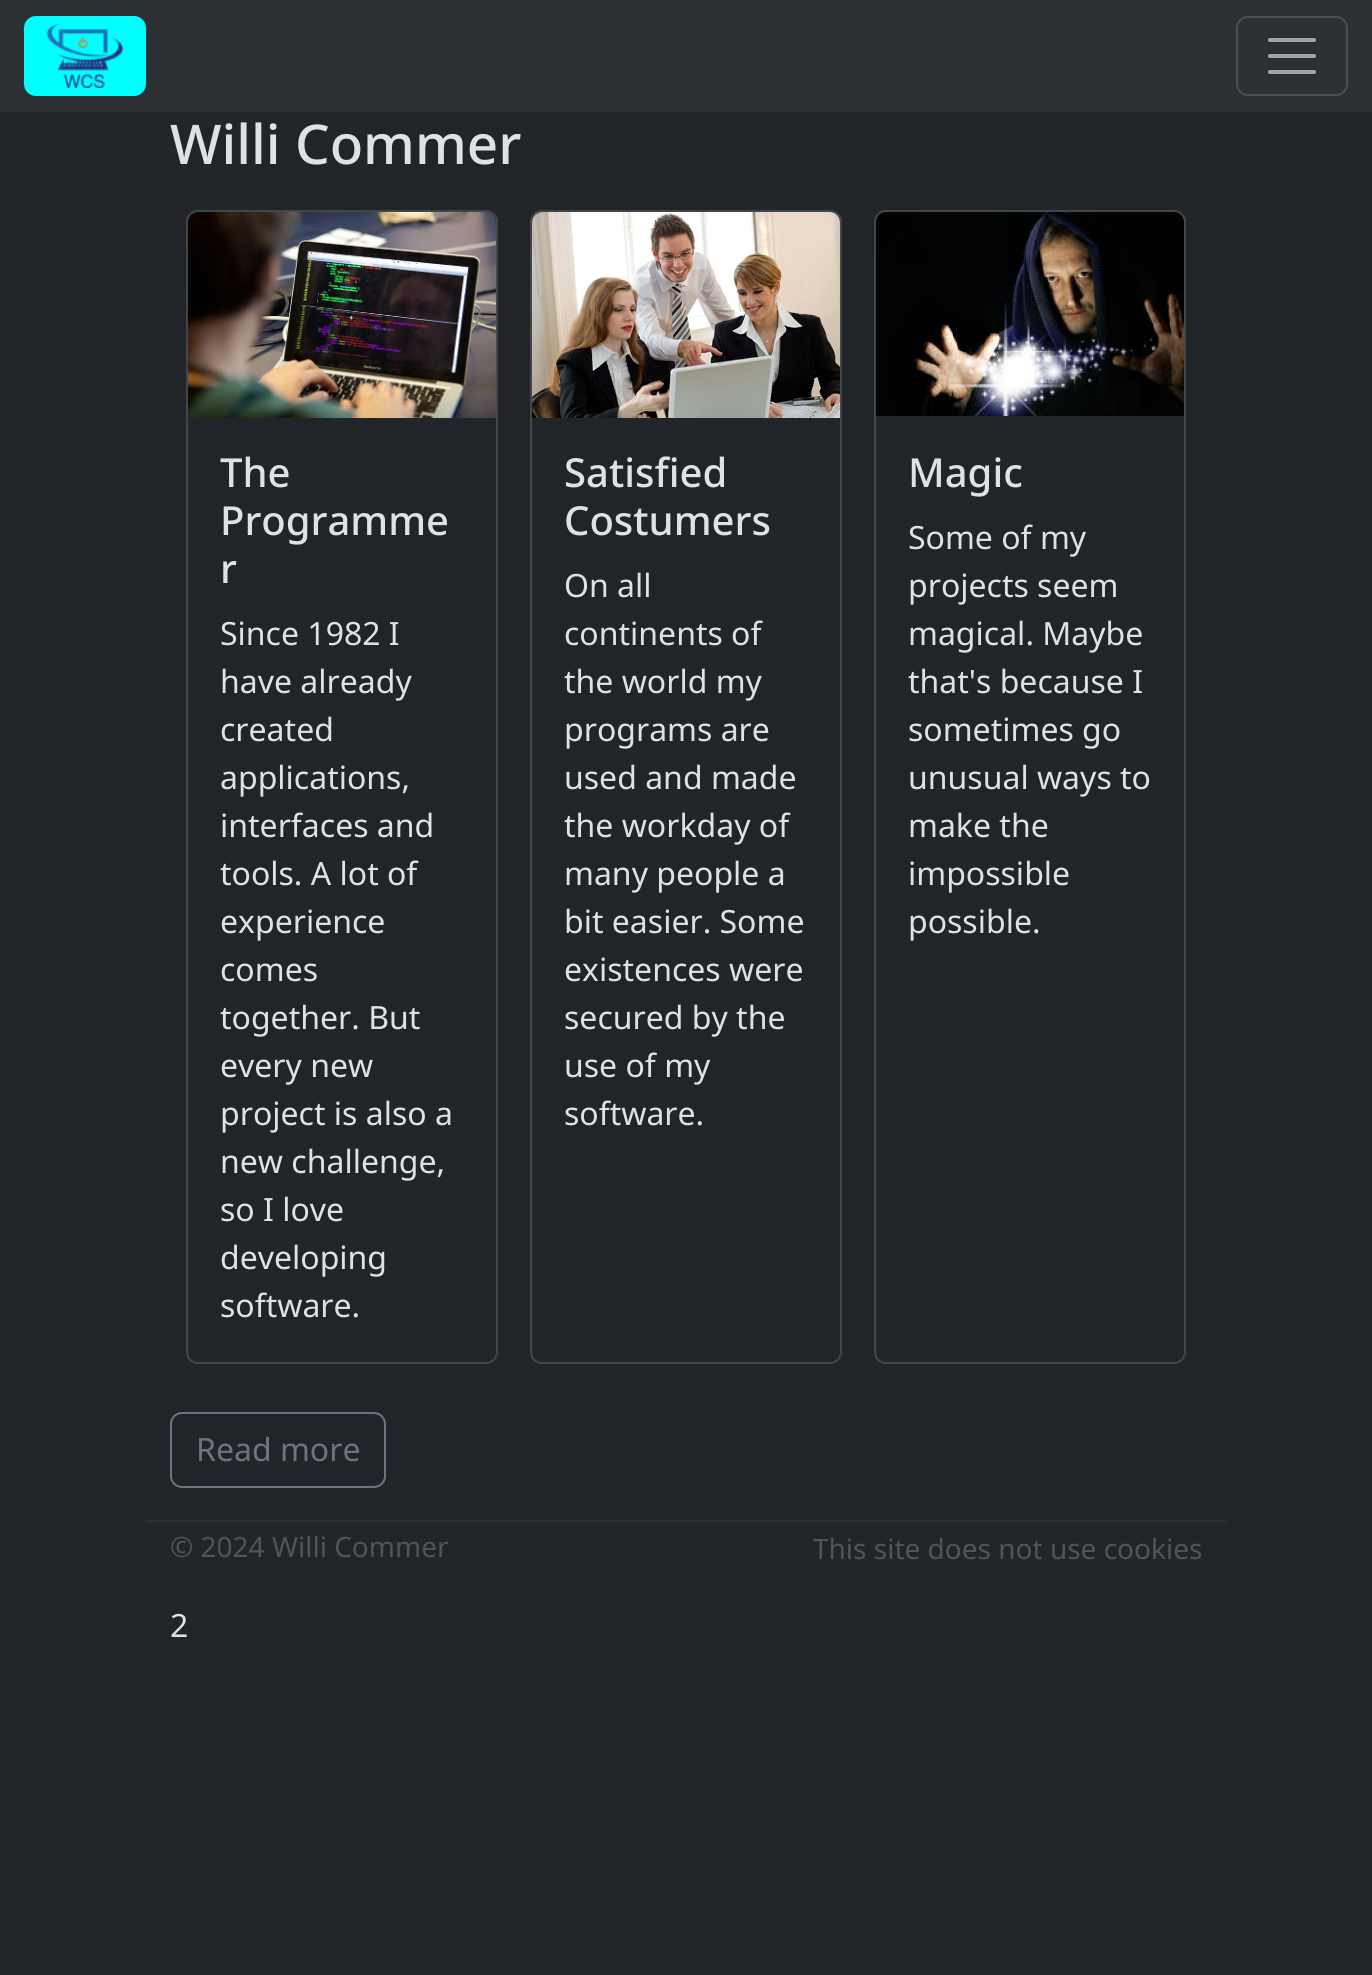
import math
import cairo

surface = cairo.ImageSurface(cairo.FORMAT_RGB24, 1372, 1975)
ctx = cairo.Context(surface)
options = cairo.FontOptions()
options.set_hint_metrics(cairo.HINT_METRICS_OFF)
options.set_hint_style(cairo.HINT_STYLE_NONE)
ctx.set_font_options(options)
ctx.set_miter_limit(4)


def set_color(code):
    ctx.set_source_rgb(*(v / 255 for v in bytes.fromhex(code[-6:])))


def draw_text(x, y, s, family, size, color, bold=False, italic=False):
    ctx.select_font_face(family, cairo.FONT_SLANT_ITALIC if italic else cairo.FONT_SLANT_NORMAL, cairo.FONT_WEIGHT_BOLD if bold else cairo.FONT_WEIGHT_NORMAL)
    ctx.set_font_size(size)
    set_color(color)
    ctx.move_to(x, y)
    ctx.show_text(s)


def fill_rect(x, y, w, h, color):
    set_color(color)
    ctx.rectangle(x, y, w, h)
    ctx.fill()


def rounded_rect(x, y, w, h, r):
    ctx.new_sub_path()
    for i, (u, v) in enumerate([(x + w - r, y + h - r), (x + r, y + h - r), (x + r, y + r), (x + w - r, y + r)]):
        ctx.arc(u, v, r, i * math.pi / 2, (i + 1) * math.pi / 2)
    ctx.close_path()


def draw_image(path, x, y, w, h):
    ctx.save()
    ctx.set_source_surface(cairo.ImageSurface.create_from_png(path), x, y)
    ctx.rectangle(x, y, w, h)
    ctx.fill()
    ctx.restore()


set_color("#212529")
ctx.paint()
fill_rect(0, 0, 1372, 112, "#2b3035")
set_color("#00ffff")
rounded_rect(24, 16, 122, 80, 12)
ctx.fill()
draw_image("assets/img1.png", 46, 24, 78, 64)
rounded_rect(1237, 17, 110, 78, 11)
set_color("#4b4f53")
ctx.stroke()
ctx.new_path()
ctx.move_to(1270, 40)
ctx.line_to(1314, 40)
ctx.move_to(1270, 56)
ctx.line_to(1314, 56)
ctx.move_to(1270, 72)
ctx.line_to(1314, 72)
set_color("#a0a2a4")
ctx.set_line_width(4)
ctx.set_line_cap(cairo.LINE_CAP_ROUND)
ctx.stroke()
draw_text(170, 164, "Willi Commer", "Noto Sans Medium", 54.75, "#dee2e6")
rounded_rect(187, 211, 310, 1152, 11)
set_color("#424649")
ctx.set_line_width(2)
ctx.set_line_cap(cairo.LINE_CAP_BUTT)
ctx.stroke()
draw_image("assets/img2.png", 188, 212, 308, 206)
draw_text(220, 487, "The", "Noto Sans Medium", 40, "#dee2e6")
draw_text(220, 535, "Programme", "Noto Sans Medium", 40, "#dee2e6")
draw_text(220, 583, "r", "Noto Sans Medium", 40, "#dee2e6")
draw_text(220, 645, "Since 1982 I", "Noto Sans", 32, "#dee2e6")
draw_text(220, 693, "have already", "Noto Sans", 32, "#dee2e6")
draw_text(220, 741, "created", "Noto Sans", 32, "#dee2e6")
draw_text(220, 789, "applications,", "Noto Sans", 32, "#dee2e6")
draw_text(220, 837, "interfaces and", "Noto Sans", 32, "#dee2e6")
draw_text(220, 885, "tools. A lot of", "Noto Sans", 32, "#dee2e6")
draw_text(220, 933, "experience", "Noto Sans", 32, "#dee2e6")
draw_text(220, 981, "comes", "Noto Sans", 32, "#dee2e6")
draw_text(220, 1029, "together. But", "Noto Sans", 32, "#dee2e6")
draw_text(220, 1077, "every new", "Noto Sans", 32, "#dee2e6")
draw_text(220, 1125, "project is also a", "Noto Sans", 32, "#dee2e6")
draw_text(220, 1173, "new challenge,", "Noto Sans", 32, "#dee2e6")
draw_text(220, 1221, "so I love", "Noto Sans", 32, "#dee2e6")
draw_text(220, 1269, "developing", "Noto Sans", 32, "#dee2e6")
draw_text(220, 1317, "software.", "Noto Sans", 32, "#dee2e6")
rounded_rect(531, 211, 310, 1152, 11)
set_color("#424649")
ctx.stroke()
draw_image("assets/img3.png", 532, 212, 308, 206)
draw_text(564, 487, "Satisfied", "Noto Sans Medium", 40, "#dee2e6")
draw_text(564, 535, "Costumers", "Noto Sans Medium", 40, "#dee2e6")
draw_text(564, 597, "On all", "Noto Sans", 32, "#dee2e6")
draw_text(564, 645, "continents of", "Noto Sans", 32, "#dee2e6")
draw_text(564, 693, "the world my", "Noto Sans", 32, "#dee2e6")
draw_text(564, 741, "programs are", "Noto Sans", 32, "#dee2e6")
draw_text(564, 789, "used and made", "Noto Sans", 32, "#dee2e6")
draw_text(564, 837, "the workday of", "Noto Sans", 32, "#dee2e6")
draw_text(564, 885, "many people a", "Noto Sans", 32, "#dee2e6")
draw_text(564, 933, "bit easier. Some", "Noto Sans", 32, "#dee2e6")
draw_text(564, 981, "existences were", "Noto Sans", 32, "#dee2e6")
draw_text(564, 1029, "secured by the", "Noto Sans", 32, "#dee2e6")
draw_text(564, 1077, "use of my", "Noto Sans", 32, "#dee2e6")
draw_text(564, 1125, "software.", "Noto Sans", 32, "#dee2e6")
rounded_rect(875, 211, 310, 1152, 11)
set_color("#424649")
ctx.stroke()
draw_image("assets/img4.png", 876, 212, 308, 204)
draw_text(908, 487, "Magic", "Noto Sans Medium", 40, "#dee2e6")
draw_text(908, 549, "Some of my", "Noto Sans", 32, "#dee2e6")
draw_text(908, 597, "projects seem", "Noto Sans", 32, "#dee2e6")
draw_text(908, 645, "magical. Maybe", "Noto Sans", 32, "#dee2e6")
draw_text(908, 693, "that's because I", "Noto Sans", 32, "#dee2e6")
draw_text(908, 741, "sometimes go", "Noto Sans", 32, "#dee2e6")
draw_text(908, 789, "unusual ways to", "Noto Sans", 32, "#dee2e6")
draw_text(908, 837, "make the", "Noto Sans", 32, "#dee2e6")
draw_text(908, 885, "impossible", "Noto Sans", 32, "#dee2e6")
draw_text(908, 933, "possible.", "Noto Sans", 32, "#dee2e6")
rounded_rect(171, 1413, 214, 74, 11)
set_color("#6c757d")
ctx.stroke()
draw_text(196, 1461, "Read more", "Noto Sans", 32, "#6c757d")
fill_rect(146, 1520, 1080, 2, "#2b3035")
draw_text(170, 1557, "© 2024 Willi Commer", "Noto Sans", 28, "#505458")
draw_text(813, 1559, "This site does not use cookies", "Noto Sans", 28, "#505458")
draw_text(170, 1637, "2", "Noto Sans", 32, "#dee2e6")
surface.write_to_png("output.png")
